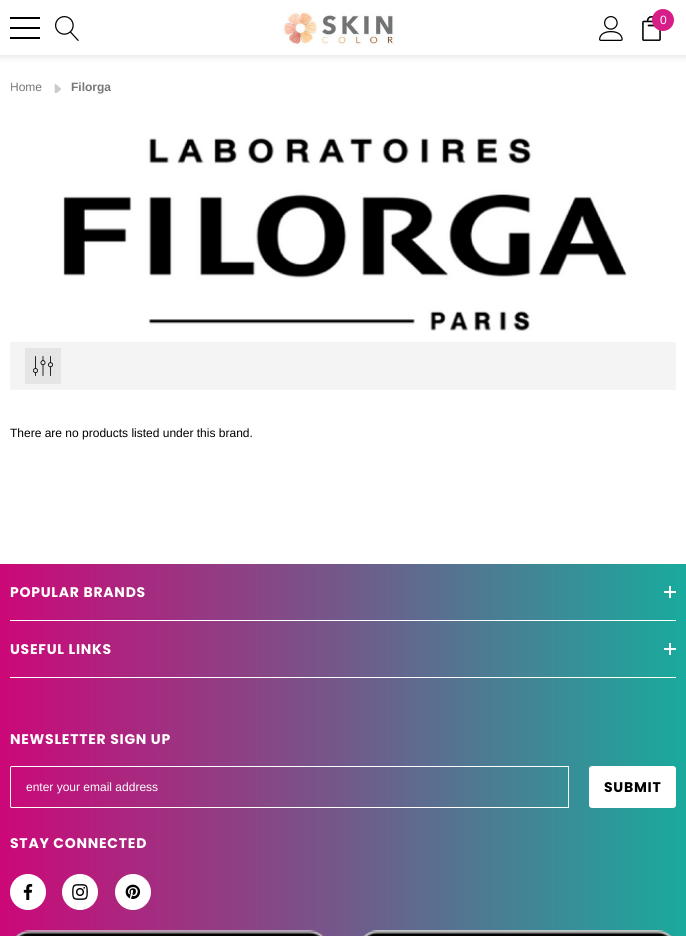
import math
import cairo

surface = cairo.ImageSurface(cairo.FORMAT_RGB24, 686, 936)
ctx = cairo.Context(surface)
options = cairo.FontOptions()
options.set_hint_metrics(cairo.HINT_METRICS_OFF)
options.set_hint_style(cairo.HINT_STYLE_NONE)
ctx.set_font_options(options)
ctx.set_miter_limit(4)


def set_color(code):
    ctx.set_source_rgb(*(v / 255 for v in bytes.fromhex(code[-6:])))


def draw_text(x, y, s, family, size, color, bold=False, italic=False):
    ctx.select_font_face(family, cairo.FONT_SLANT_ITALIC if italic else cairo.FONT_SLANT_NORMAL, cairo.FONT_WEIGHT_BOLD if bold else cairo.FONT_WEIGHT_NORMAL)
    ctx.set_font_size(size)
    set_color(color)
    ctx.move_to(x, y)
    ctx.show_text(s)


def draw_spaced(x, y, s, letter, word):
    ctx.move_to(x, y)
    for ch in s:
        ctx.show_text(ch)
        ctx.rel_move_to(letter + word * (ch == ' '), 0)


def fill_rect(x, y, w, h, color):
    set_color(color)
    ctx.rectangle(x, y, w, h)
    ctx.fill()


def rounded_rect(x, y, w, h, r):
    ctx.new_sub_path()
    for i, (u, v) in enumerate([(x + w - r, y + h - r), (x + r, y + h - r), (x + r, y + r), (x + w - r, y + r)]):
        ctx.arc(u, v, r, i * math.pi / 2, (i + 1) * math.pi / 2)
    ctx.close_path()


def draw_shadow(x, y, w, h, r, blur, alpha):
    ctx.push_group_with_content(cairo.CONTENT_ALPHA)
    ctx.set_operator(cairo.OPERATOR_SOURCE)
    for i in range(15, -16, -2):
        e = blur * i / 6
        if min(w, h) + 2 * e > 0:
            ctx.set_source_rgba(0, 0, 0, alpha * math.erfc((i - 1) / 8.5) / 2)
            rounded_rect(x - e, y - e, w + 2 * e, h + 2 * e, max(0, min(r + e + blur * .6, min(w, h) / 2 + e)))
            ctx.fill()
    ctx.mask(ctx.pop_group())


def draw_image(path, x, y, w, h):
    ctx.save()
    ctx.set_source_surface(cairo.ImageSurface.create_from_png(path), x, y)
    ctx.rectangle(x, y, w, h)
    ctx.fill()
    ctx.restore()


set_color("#ffffff")
ctx.paint()
ctx.save()
ctx.rectangle(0, 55, 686, 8)
ctx.clip()
set_color("#e5e5e5")
draw_shadow(-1, 0, 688, 57, 0, 3, 1)
ctx.restore()
fill_rect(10, 27, 30, 2, "#000000")
fill_rect(10, 17, 30, 2, "#000000")
fill_rect(10, 37, 30, 2, "#000000")
draw_image("assets/img1.png", 55, 16, 24, 25)
draw_image("assets/img2.png", 282, 9, 113, 38)
draw_image("assets/img3.png", 599, 16, 24, 25)
draw_image("assets/img4.png", 642, 16, 19, 25)
set_color("#d71e88")
ctx.arc(663, 20, 11, 0, 2 * math.pi)
ctx.fill()
draw_text(660, 24, "0", "Arimo", 12, "#ffffff")
draw_text(10, 91, "Home", "Arimo", 12, "#777777")
gradient = cairo.LinearGradient(0, 90, 12, 90)
gradient.add_color_stop_rgba(0, 1, 1, 1, 1)
gradient.add_color_stop_rgba(1, 1, 1, 1, 0.1)
ctx.set_source(gradient)
ctx.rectangle(11, 82, 1, 9)
ctx.fill()
draw_image("assets/img5.png", 54, 83, 8, 10)
draw_text(71, 91, "Filorga", "Arimo", 12, "#777777", bold=True)
draw_image("assets/img6.png", 63, 137, 564, 194)
fill_rect(10, 342, 666, 48, "#f4f4f4")
fill_rect(25, 348, 36, 36, "#e5e5e5")
draw_image("assets/img7.png", 33, 356, 20, 20)
draw_text(10, 437, "There are no products listed under this brand.", "Arimo", 12, "#000000")
gradient = cairo.LinearGradient(0, 881, 686, 881)
gradient.add_color_stop_rgba(0, 0.8, 0.031, 0.471, 1)
gradient.add_color_stop_rgba(1, 0.098, 0.667, 0.616, 1)
ctx.set_source(gradient)
ctx.rectangle(0, 564, 686, 372)
ctx.fill()
fill_rect(10, 620, 666, 1, "#ffffff")
ctx.select_font_face("Poppins", cairo.FONT_SLANT_NORMAL, cairo.FONT_WEIGHT_BOLD)
ctx.set_font_size(14)
draw_spaced(10, 597, "POPULAR BRANDS", 0.75, 0)
fill_rect(669, 586, 2, 12, "#ffffff")
fill_rect(664, 591, 12, 2, "#ffffff")
fill_rect(10, 677, 666, 1, "#ffffff")
draw_spaced(10, 654, "USEFUL LINKS", 0.75, 0)
fill_rect(669, 643, 2, 12, "#ffffff")
fill_rect(664, 648, 12, 2, "#ffffff")
draw_spaced(10, 744, "NEWSLETTER SIGN UP", 0.75, 0)
ctx.new_path()
ctx.move_to(12, 766.5)
ctx.line_to(568.5, 766.5)
ctx.line_to(568.5, 807.5)
ctx.line_to(12, 807.5)
ctx.curve_to(11, 807.5, 10.5, 807, 10.5, 806)
ctx.line_to(10.5, 768)
ctx.curve_to(10.5, 767, 11, 766.5, 12, 766.5)
ctx.close_path()
ctx.set_line_width(1)
ctx.stroke()
draw_text(26, 791, "enter your email address", "Arimo", 12, "#ffffff")
rounded_rect(589, 766, 87, 42, 3)
ctx.fill()
ctx.select_font_face("Poppins", cairo.FONT_SLANT_NORMAL, cairo.FONT_WEIGHT_BOLD)
ctx.set_font_size(14)
set_color("#000000")
draw_spaced(604, 792, "SUBMIT", 0.75, 0)
set_color("#ffffff")
draw_spaced(10, 848, "STAY CONNECTED", 0.75, 0)
ctx.new_path()
ctx.arc(28, 892, 18, 0, 2 * math.pi)
ctx.fill()
ctx.new_path()
ctx.move_to(28, 874)
ctx.curve_to(32.5, 874, 36, 882, 36, 892)
ctx.curve_to(36, 902, 32.5, 910, 28, 910)
ctx.curve_to(23.5, 910, 20, 902, 20, 892)
ctx.curve_to(20, 882, 23.5, 874, 28, 874)
ctx.close_path()
ctx.fill()
draw_image("assets/img8.png", 23, 884, 10, 16)
ctx.arc(80, 892, 18, 0, 2 * math.pi)
ctx.fill()
ctx.new_path()
ctx.move_to(80, 874)
ctx.curve_to(84.5, 874, 88, 882, 88, 892)
ctx.curve_to(88, 902, 84.5, 910, 80, 910)
ctx.curve_to(75.5, 910, 72, 902, 72, 892)
ctx.curve_to(72, 882, 75.5, 874, 80, 874)
ctx.close_path()
ctx.fill()
draw_image("assets/img9.png", 72, 884, 16, 16)
ctx.arc(133, 892, 18, 0, 2 * math.pi)
ctx.fill()
ctx.new_path()
ctx.move_to(133, 874)
ctx.curve_to(137.5, 874, 141, 882, 141, 892)
ctx.curve_to(141, 902, 137.5, 910, 133, 910)
ctx.curve_to(128.5, 910, 125, 902, 125, 892)
ctx.curve_to(125, 882, 128.5, 874, 133, 874)
ctx.close_path()
ctx.fill()
draw_image("assets/img10.png", 125, 884, 16, 15)
draw_image("assets/img11.png", 15, 930, 309, 6)
draw_image("assets/img12.png", 363, 930, 309, 6)
surface.write_to_png("output.png")
